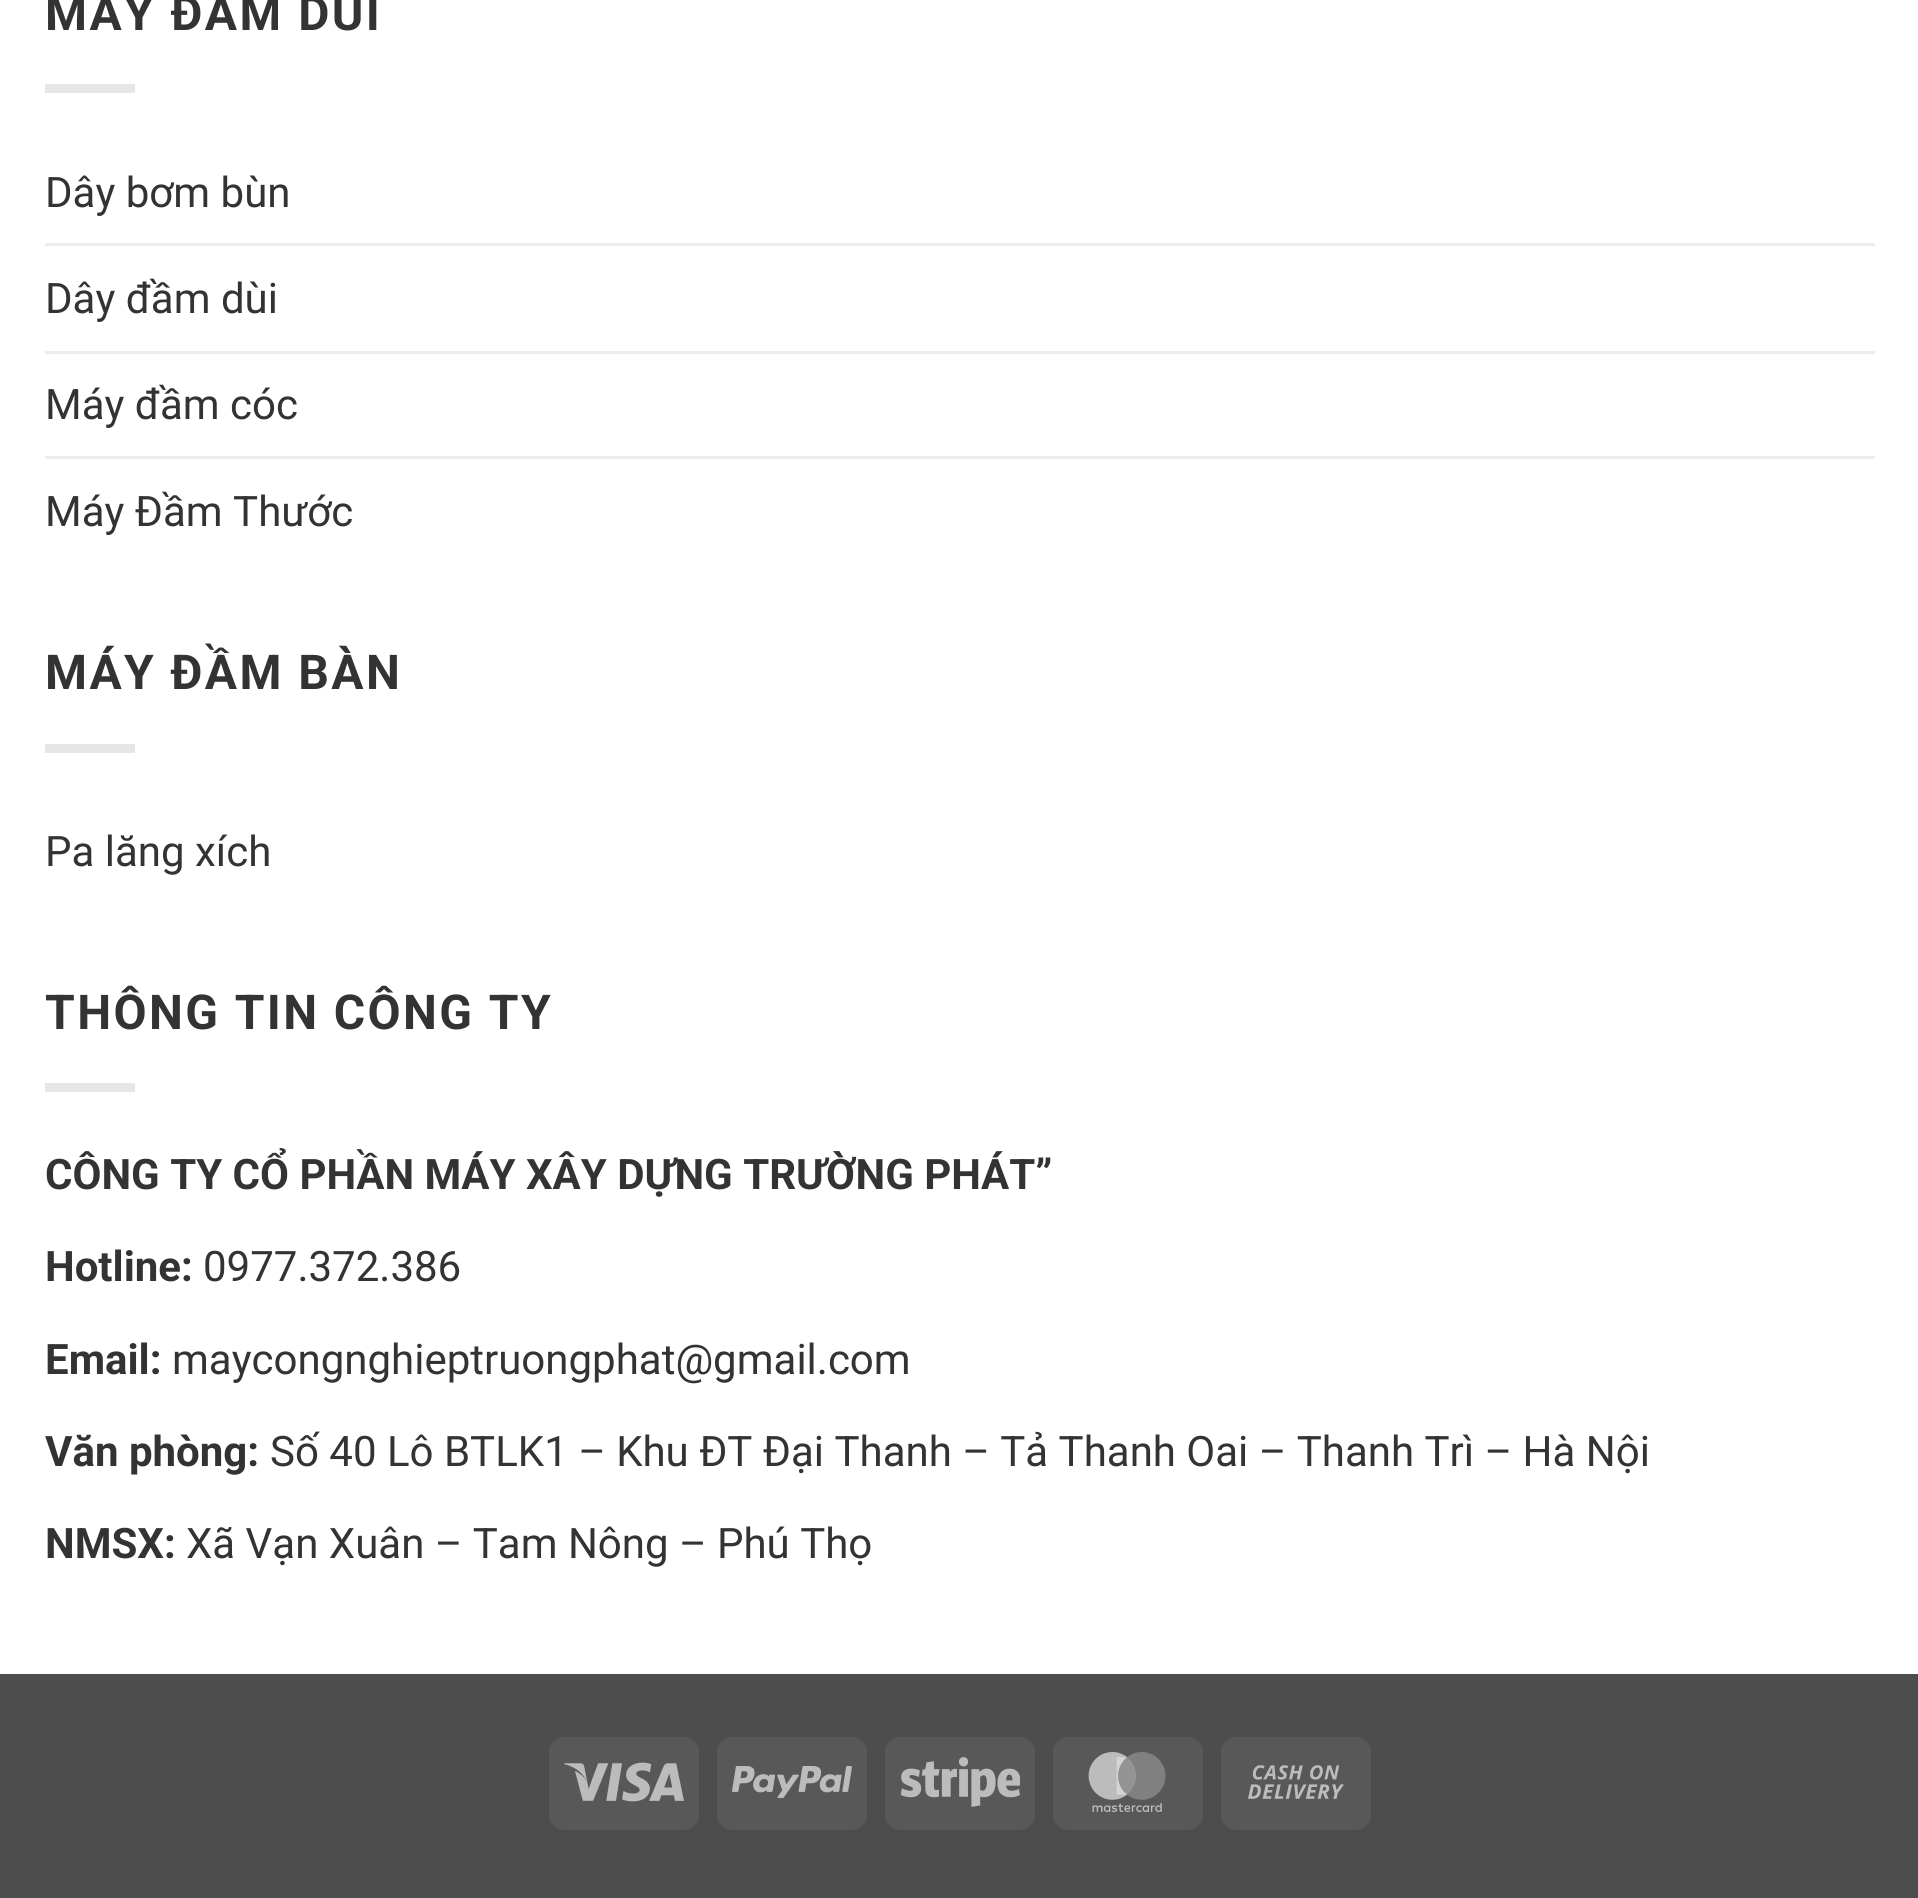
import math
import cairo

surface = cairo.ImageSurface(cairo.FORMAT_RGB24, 1918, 1898)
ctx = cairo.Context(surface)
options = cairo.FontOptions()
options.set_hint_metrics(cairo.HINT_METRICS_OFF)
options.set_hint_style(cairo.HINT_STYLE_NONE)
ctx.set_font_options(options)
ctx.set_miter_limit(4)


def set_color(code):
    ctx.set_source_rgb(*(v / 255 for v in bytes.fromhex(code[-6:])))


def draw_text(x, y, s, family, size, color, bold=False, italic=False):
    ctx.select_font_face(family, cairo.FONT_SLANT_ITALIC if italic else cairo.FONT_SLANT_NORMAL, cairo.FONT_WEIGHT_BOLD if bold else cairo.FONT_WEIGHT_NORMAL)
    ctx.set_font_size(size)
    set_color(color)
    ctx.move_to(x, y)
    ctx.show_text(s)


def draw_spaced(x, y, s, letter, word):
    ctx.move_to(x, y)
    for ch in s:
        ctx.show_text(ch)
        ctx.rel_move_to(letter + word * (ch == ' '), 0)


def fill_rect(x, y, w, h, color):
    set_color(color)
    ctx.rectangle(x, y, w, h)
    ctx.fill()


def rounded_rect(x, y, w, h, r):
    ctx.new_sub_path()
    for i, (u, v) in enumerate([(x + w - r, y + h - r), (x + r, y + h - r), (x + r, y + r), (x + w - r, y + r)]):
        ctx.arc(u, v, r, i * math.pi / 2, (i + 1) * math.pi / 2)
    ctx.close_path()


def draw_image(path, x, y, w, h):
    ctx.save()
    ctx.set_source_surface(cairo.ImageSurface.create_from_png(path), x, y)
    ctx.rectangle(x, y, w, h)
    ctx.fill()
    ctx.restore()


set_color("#4d4d4d")
ctx.paint()
fill_rect(0, 0, 1918, 1674, "#ffffff")
ctx.select_font_face("Roboto", cairo.FONT_SLANT_NORMAL, cairo.FONT_WEIGHT_BOLD)
ctx.set_font_size(48)
set_color("#333333")
draw_spaced(45, 30, "MÁY ĐẦM DÙI", 2.4, 0)
fill_rect(45, 84, 90, 9, "#e6e6e6")
draw_text(45, 207, "Dây bơm bùn", "Roboto", 42, "#333333")
fill_rect(45, 243, 1830, 3, "#ececec")
draw_text(45, 313, "Dây đầm dùi", "Roboto", 42, "#333333")
fill_rect(45, 351, 1830, 3, "#ececec")
draw_text(45, 419, "Máy đầm cóc", "Roboto", 42, "#333333")
fill_rect(45, 456, 1830, 3, "#ececec")
draw_text(45, 526, "Máy Đầm Thước", "Roboto", 42, "#333333")
ctx.select_font_face("Roboto", cairo.FONT_SLANT_NORMAL, cairo.FONT_WEIGHT_BOLD)
ctx.set_font_size(48)
draw_spaced(45, 689, "MÁY ĐẦM BÀN", 2.4, 0)
fill_rect(45, 744, 90, 9, "#e6e6e6")
draw_text(45, 866, "Pa lăng xích", "Roboto", 42, "#333333")
ctx.select_font_face("Roboto", cairo.FONT_SLANT_NORMAL, cairo.FONT_WEIGHT_BOLD)
ctx.set_font_size(48)
draw_spaced(45, 1029, "THÔNG TIN CÔNG TY", 2.4, 0)
fill_rect(45, 1083, 90, 9, "#e6e6e6")
draw_text(45, 1189, "CÔNG TY CỔ PHẦN MÁY XÂY DỰNG TRƯỜNG PHÁT”", "Roboto", 42, "#333333", bold=True)
draw_text(45, 1281, "Hotline:", "Roboto", 42, "#333333", bold=True)
draw_text(203, 1281, "0977.372.386", "Roboto", 42, "#333333")
draw_text(45, 1374, "Email:", "Roboto", 42, "#333333", bold=True)
draw_text(172, 1374, "maycongnghieptruongphat@gmail.com", "Roboto", 42, "#333333")
draw_text(45, 1466, "Văn phòng:", "Roboto", 42, "#333333", bold=True)
draw_text(270, 1466, "Số 40 Lô BTLK1 – Khu ĐT Đại Thanh – Tả Thanh Oai – Thanh Trì – Hà Nội", "Roboto", 42, "#333333")
draw_text(45, 1558, "NMSX:", "Roboto", 42, "#333333", bold=True)
draw_text(186, 1558, "Xã Vạn Xuân – Tam Nông – Phú Thọ", "Roboto", 42, "#333333")
set_color("#585858")
rounded_rect(549, 1737, 150, 93, 15)
ctx.fill()
draw_image("assets/img1.png", 564, 1762, 120, 40)
rounded_rect(717, 1737, 150, 93, 15)
ctx.fill()
draw_image("assets/img2.png", 732, 1766, 120, 32)
rounded_rect(885, 1737, 150, 93, 15)
ctx.fill()
draw_image("assets/img3.png", 900, 1757, 120, 50)
rounded_rect(1053, 1737, 150, 93, 15)
ctx.fill()
draw_image("assets/img4.png", 1088, 1752, 78, 60)
rounded_rect(1221, 1737, 150, 93, 15)
ctx.fill()
draw_image("assets/img5.png", 1248, 1765, 96, 34)
surface.write_to_png("output.png")
